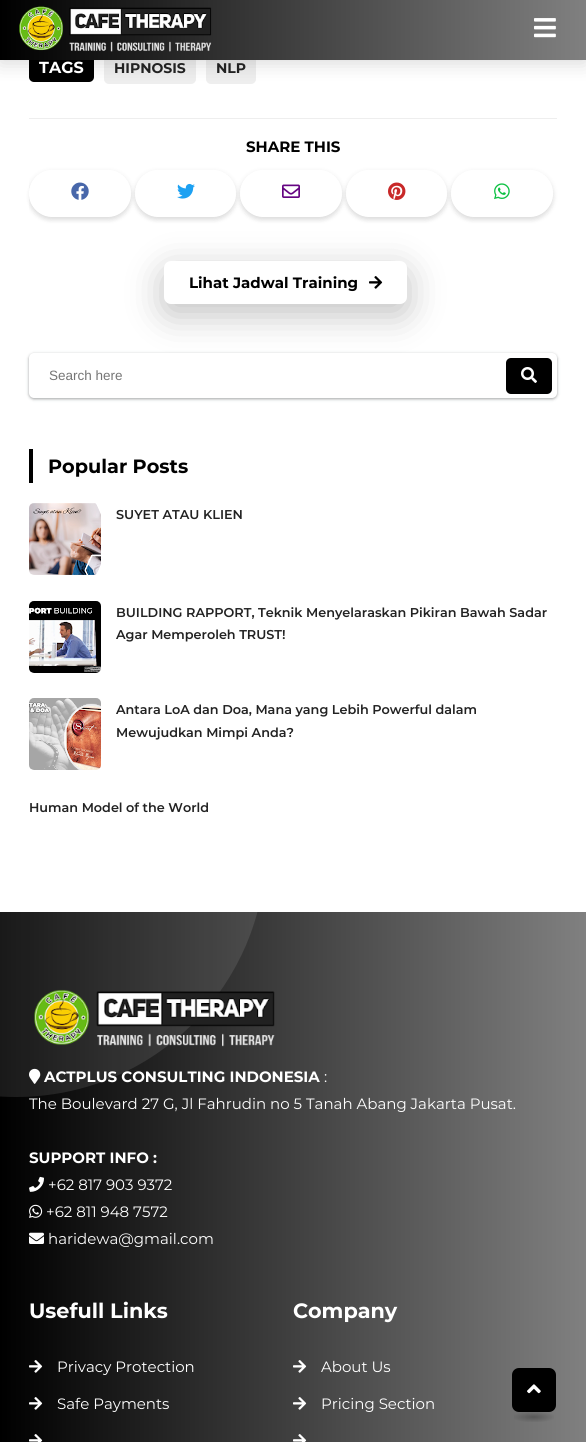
import math
import cairo

surface = cairo.ImageSurface(cairo.FORMAT_RGB24, 586, 1442)
ctx = cairo.Context(surface)
options = cairo.FontOptions()
options.set_hint_metrics(cairo.HINT_METRICS_OFF)
options.set_hint_style(cairo.HINT_STYLE_NONE)
ctx.set_font_options(options)
ctx.set_miter_limit(4)


def set_color(code):
    ctx.set_source_rgb(*(v / 255 for v in bytes.fromhex(code[-6:])))


def draw_text(x, y, s, family, size, color, bold=False, italic=False):
    ctx.select_font_face(family, cairo.FONT_SLANT_ITALIC if italic else cairo.FONT_SLANT_NORMAL, cairo.FONT_WEIGHT_BOLD if bold else cairo.FONT_WEIGHT_NORMAL)
    ctx.set_font_size(size)
    set_color(color)
    ctx.move_to(x, y)
    ctx.show_text(s)


def fill_rect(x, y, w, h, color):
    set_color(color)
    ctx.rectangle(x, y, w, h)
    ctx.fill()


def rounded_rect(x, y, w, h, r):
    ctx.new_sub_path()
    for i, (u, v) in enumerate([(x + w - r, y + h - r), (x + r, y + h - r), (x + r, y + r), (x + w - r, y + r)]):
        ctx.arc(u, v, r, i * math.pi / 2, (i + 1) * math.pi / 2)
    ctx.close_path()


def draw_shadow(x, y, w, h, r, blur, alpha):
    ctx.push_group_with_content(cairo.CONTENT_ALPHA)
    ctx.set_operator(cairo.OPERATOR_SOURCE)
    for i in range(15, -16, -2):
        e = blur * i / 6
        if min(w, h) + 2 * e > 0:
            ctx.set_source_rgba(0, 0, 0, alpha * math.erfc((i - 1) / 8.5) / 2)
            rounded_rect(x - e, y - e, w + 2 * e, h + 2 * e, max(0, min(r + e + blur * .6, min(w, h) / 2 + e)))
            ctx.fill()
    ctx.mask(ctx.pop_group())


def draw_image(path, x, y, w, h):
    ctx.save()
    ctx.set_source_surface(cairo.ImageSurface.create_from_png(path), x, y)
    ctx.rectangle(x, y, w, h)
    ctx.fill()
    ctx.restore()


set_color("#ffffff")
ctx.paint()
set_color("#000000")
rounded_rect(29, 53, 65, 29, 5)
ctx.fill()
set_color("#eeeeee")
rounded_rect(104, 52, 92, 32, 5)
ctx.fill()
rounded_rect(206, 52, 50, 32, 5)
ctx.fill()
set_color("#000000")
draw_shadow(0, 3, 586, 60, 0, 10, 0.15)
gradient = cairo.LinearGradient(0, 30, 586, 30)
gradient.add_color_stop_rgba(0, 0, 0, 0, 1)
gradient.add_color_stop_rgba(1, 0.502, 0.502, 0.502, 1)
ctx.set_source(gradient)
ctx.rectangle(0, 0, 586, 60)
ctx.fill()
draw_image("assets/img1.png", 19, 6, 193, 46)
draw_image("assets/img2.png", 534, 18, 22, 20)
draw_text(39, 73, "TAGS", "Montserrat", 16, "#ffffff", bold=True)
draw_text(114, 73, "HIPNOSIS", "Montserrat", 14, "#222222", bold=True)
draw_text(216, 73, "NLP", "Montserrat", 14, "#222222", bold=True)
fill_rect(29, 118, 528, 1, "#eeeeee")
draw_text(246, 152, "SHARE THIS", "Montserrat", 15, "#000000", bold=True)
ctx.save()
ctx.rectangle(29, 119, 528, 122)
ctx.clip()
ctx.set_fill_rule(cairo.FILL_RULE_EVEN_ODD)
ctx.new_path()
ctx.move_to(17, 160)
ctx.line_to(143, 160)
ctx.line_to(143, 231)
ctx.line_to(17, 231)
ctx.close_path()
ctx.move_to(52.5, 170)
ctx.line_to(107.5, 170)
ctx.curve_to(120.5, 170, 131, 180.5, 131, 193.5)
ctx.curve_to(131, 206.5, 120.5, 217, 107.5, 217)
ctx.line_to(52.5, 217)
ctx.curve_to(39.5, 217, 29, 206.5, 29, 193.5)
ctx.curve_to(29, 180.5, 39.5, 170, 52.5, 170)
ctx.close_path()
ctx.clip()
set_color("#000000")
draw_shadow(29, 172, 102, 47, 23.5, 3.5, 0.08)
ctx.restore()
ctx.save()
ctx.set_fill_rule(cairo.FILL_RULE_EVEN_ODD)
ctx.new_path()
ctx.move_to(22, 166)
ctx.line_to(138, 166)
ctx.line_to(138, 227)
ctx.line_to(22, 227)
ctx.close_path()
ctx.move_to(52.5, 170)
ctx.line_to(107.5, 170)
ctx.curve_to(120.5, 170, 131, 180.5, 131, 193.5)
ctx.curve_to(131, 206.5, 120.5, 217, 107.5, 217)
ctx.line_to(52.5, 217)
ctx.curve_to(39.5, 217, 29, 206.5, 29, 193.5)
ctx.curve_to(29, 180.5, 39.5, 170, 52.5, 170)
ctx.close_path()
ctx.clip()
set_color("#000000")
draw_shadow(29, 173, 102, 47, 23.5, 2, 0.08)
ctx.restore()
draw_image("assets/img3.png", 71, 182, 18, 18)
ctx.save()
ctx.set_fill_rule(cairo.FILL_RULE_EVEN_ODD)
ctx.new_path()
ctx.move_to(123, 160)
ctx.line_to(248, 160)
ctx.line_to(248, 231)
ctx.line_to(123, 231)
ctx.close_path()
ctx.move_to(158.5, 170)
ctx.line_to(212.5, 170)
ctx.curve_to(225.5, 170, 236, 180.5, 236, 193.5)
ctx.curve_to(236, 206.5, 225.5, 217, 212.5, 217)
ctx.line_to(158.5, 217)
ctx.curve_to(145.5, 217, 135, 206.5, 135, 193.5)
ctx.curve_to(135, 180.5, 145.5, 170, 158.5, 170)
ctx.close_path()
ctx.clip()
set_color("#000000")
draw_shadow(135, 172, 101, 47, 23.5, 3.5, 0.08)
ctx.restore()
ctx.save()
ctx.set_fill_rule(cairo.FILL_RULE_EVEN_ODD)
ctx.new_path()
ctx.move_to(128, 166)
ctx.line_to(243, 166)
ctx.line_to(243, 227)
ctx.line_to(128, 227)
ctx.close_path()
ctx.move_to(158.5, 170)
ctx.line_to(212.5, 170)
ctx.curve_to(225.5, 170, 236, 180.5, 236, 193.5)
ctx.curve_to(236, 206.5, 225.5, 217, 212.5, 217)
ctx.line_to(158.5, 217)
ctx.curve_to(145.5, 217, 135, 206.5, 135, 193.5)
ctx.curve_to(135, 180.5, 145.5, 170, 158.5, 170)
ctx.close_path()
ctx.clip()
set_color("#000000")
draw_shadow(135, 173, 101, 47, 23.5, 2, 0.08)
ctx.restore()
draw_image("assets/img4.png", 177, 183, 18, 16)
ctx.save()
ctx.set_fill_rule(cairo.FILL_RULE_EVEN_ODD)
ctx.new_path()
ctx.move_to(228, 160)
ctx.line_to(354, 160)
ctx.line_to(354, 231)
ctx.line_to(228, 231)
ctx.close_path()
ctx.move_to(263.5, 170)
ctx.line_to(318.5, 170)
ctx.curve_to(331.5, 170, 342, 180.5, 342, 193.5)
ctx.curve_to(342, 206.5, 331.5, 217, 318.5, 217)
ctx.line_to(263.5, 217)
ctx.curve_to(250.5, 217, 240, 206.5, 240, 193.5)
ctx.curve_to(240, 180.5, 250.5, 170, 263.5, 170)
ctx.close_path()
ctx.clip()
set_color("#000000")
draw_shadow(240, 172, 102, 47, 23.5, 3.5, 0.08)
ctx.restore()
ctx.save()
ctx.set_fill_rule(cairo.FILL_RULE_EVEN_ODD)
ctx.new_path()
ctx.move_to(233, 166)
ctx.line_to(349, 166)
ctx.line_to(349, 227)
ctx.line_to(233, 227)
ctx.close_path()
ctx.move_to(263.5, 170)
ctx.line_to(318.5, 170)
ctx.curve_to(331.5, 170, 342, 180.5, 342, 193.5)
ctx.curve_to(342, 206.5, 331.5, 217, 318.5, 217)
ctx.line_to(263.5, 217)
ctx.curve_to(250.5, 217, 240, 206.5, 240, 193.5)
ctx.curve_to(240, 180.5, 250.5, 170, 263.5, 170)
ctx.close_path()
ctx.clip()
set_color("#000000")
draw_shadow(240, 173, 102, 47, 23.5, 2, 0.08)
ctx.restore()
draw_image("assets/img5.png", 282, 184, 18, 14)
ctx.save()
ctx.set_fill_rule(cairo.FILL_RULE_EVEN_ODD)
ctx.new_path()
ctx.move_to(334, 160)
ctx.line_to(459, 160)
ctx.line_to(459, 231)
ctx.line_to(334, 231)
ctx.close_path()
ctx.move_to(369.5, 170)
ctx.line_to(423.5, 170)
ctx.curve_to(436.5, 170, 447, 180.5, 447, 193.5)
ctx.curve_to(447, 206.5, 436.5, 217, 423.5, 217)
ctx.line_to(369.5, 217)
ctx.curve_to(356.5, 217, 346, 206.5, 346, 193.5)
ctx.curve_to(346, 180.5, 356.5, 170, 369.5, 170)
ctx.close_path()
ctx.clip()
set_color("#000000")
draw_shadow(346, 172, 101, 47, 23.5, 3.5, 0.08)
ctx.restore()
ctx.save()
ctx.set_fill_rule(cairo.FILL_RULE_EVEN_ODD)
ctx.new_path()
ctx.move_to(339, 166)
ctx.line_to(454, 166)
ctx.line_to(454, 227)
ctx.line_to(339, 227)
ctx.close_path()
ctx.move_to(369.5, 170)
ctx.line_to(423.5, 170)
ctx.curve_to(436.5, 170, 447, 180.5, 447, 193.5)
ctx.curve_to(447, 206.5, 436.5, 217, 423.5, 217)
ctx.line_to(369.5, 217)
ctx.curve_to(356.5, 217, 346, 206.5, 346, 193.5)
ctx.curve_to(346, 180.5, 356.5, 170, 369.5, 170)
ctx.close_path()
ctx.clip()
set_color("#000000")
draw_shadow(346, 173, 101, 47, 23.5, 2, 0.08)
ctx.restore()
draw_image("assets/img6.png", 388, 182, 18, 18)
ctx.save()
ctx.set_fill_rule(cairo.FILL_RULE_EVEN_ODD)
ctx.new_path()
ctx.move_to(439, 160)
ctx.line_to(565, 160)
ctx.line_to(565, 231)
ctx.line_to(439, 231)
ctx.close_path()
ctx.move_to(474.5, 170)
ctx.line_to(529.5, 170)
ctx.curve_to(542.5, 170, 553, 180.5, 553, 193.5)
ctx.curve_to(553, 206.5, 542.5, 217, 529.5, 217)
ctx.line_to(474.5, 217)
ctx.curve_to(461.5, 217, 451, 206.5, 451, 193.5)
ctx.curve_to(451, 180.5, 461.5, 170, 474.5, 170)
ctx.close_path()
ctx.clip()
set_color("#000000")
draw_shadow(451, 172, 102, 47, 23.5, 3.5, 0.08)
ctx.restore()
ctx.save()
ctx.set_fill_rule(cairo.FILL_RULE_EVEN_ODD)
ctx.new_path()
ctx.move_to(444, 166)
ctx.line_to(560, 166)
ctx.line_to(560, 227)
ctx.line_to(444, 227)
ctx.close_path()
ctx.move_to(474.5, 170)
ctx.line_to(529.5, 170)
ctx.curve_to(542.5, 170, 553, 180.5, 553, 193.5)
ctx.curve_to(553, 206.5, 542.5, 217, 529.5, 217)
ctx.line_to(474.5, 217)
ctx.curve_to(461.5, 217, 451, 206.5, 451, 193.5)
ctx.curve_to(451, 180.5, 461.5, 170, 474.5, 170)
ctx.close_path()
ctx.clip()
set_color("#000000")
draw_shadow(451, 173, 102, 47, 23.5, 2, 0.08)
ctx.restore()
draw_image("assets/img7.png", 494, 183, 16, 17)
set_color("#3d3d3d")
draw_shadow(162, 269, 247, 47, 9, 17.5, 0.3)
set_color("#ffffff")
rounded_rect(164, 261, 243, 43, 7)
ctx.fill()
draw_text(189, 288, "Lihat Jadwal Training", "Montserrat", 15, "#000000", bold=True)
draw_image("assets/img8.png", 369, 276, 14, 13)
set_color("#3c4043")
draw_shadow(28, 353, 530, 47, 6, 1.5, 0.15)
draw_shadow(29, 354, 528, 45, 5, 1, 0.3)
set_color("#ffffff")
rounded_rect(29, 353, 528, 45, 5)
ctx.fill()
draw_text(49, 380, "Search here", "Liberation Sans", 13.5, "#757575")
set_color("#000000")
rounded_rect(506, 358, 46, 36, 5)
ctx.fill()
draw_image("assets/img9.png", 521, 367, 16, 16)
fill_rect(29, 449, 4, 34, "#000000")
draw_text(48, 473, "Popular Posts", "Montserrat", 19.25, "#000000", bold=True)
draw_image("assets/img10.png", 29, 503, 72, 72)
draw_text(116, 519, "SUYET ATAU KLIEN", "Montserrat SemiBold", 12.8, "#222222")
gradient = cairo.LinearGradient(0, 1436, 586, 1436)
gradient.add_color_stop_rgba(0, 0, 0, 0, 1)
gradient.add_color_stop_rgba(1, 0.502, 0.502, 0.502, 1)
ctx.set_source(gradient)
ctx.rectangle(0, 912, 586, 530)
ctx.fill()
ctx.save()
ctx.rectangle(0, 912, 586, 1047)
ctx.clip()
ctx.set_source_rgba(1, 1, 1, 0.1)
ctx.arc(16, 847, 250, 0, 2 * math.pi)
ctx.fill()
ctx.restore()
draw_image("assets/img11.png", 29, 601, 72, 72)
draw_text(116, 617, "BUILDING RAPPORT, Teknik Menyelaraskan Pikiran Bawah Sadar", "Montserrat SemiBold", 12.8, "#222222")
draw_text(116, 639, "Agar Memperoleh TRUST!", "Montserrat SemiBold", 12.8, "#222222")
draw_image("assets/img12.png", 29, 698, 72, 72)
draw_text(116, 714, "Antara LoA dan Doa, Mana yang Lebih Powerful dalam", "Montserrat SemiBold", 12.8, "#222222")
draw_text(116, 737, "Mewujudkan Mimpi Anda?", "Montserrat SemiBold", 12.8, "#222222")
draw_text(29, 812, "Human Model of the World", "Montserrat SemiBold", 12.8, "#222222")
draw_image("assets/img13.png", 34, 989, 241, 58)
draw_image("assets/img14.png", 29, 1068, 12, 16)
draw_text(44, 1082, "ACTPLUS CONSULTING INDONESIA", "Montserrat", 15, "#ffffff", bold=True)
draw_text(324, 1082, ":", "Montserrat", 15, "#ffffff")
draw_text(29, 1109, "The Boulevard 27 G, Jl Fahrudin no 5 Tanah Abang Jakarta Pusat.", "Montserrat", 15, "#ffffff")
draw_text(29, 1163, "SUPPORT INFO :", "Montserrat", 15, "#ffffff", bold=True)
draw_image("assets/img15.png", 29, 1176, 15, 16)
draw_text(48, 1190, "+62 817 903 9372", "Montserrat", 15, "#ffffff")
draw_image("assets/img16.png", 29, 1204, 14, 14)
draw_text(46, 1217, "+62 811 948 7572", "Montserrat", 15, "#ffffff")
draw_image("assets/img17.png", 29, 1232, 15, 12)
draw_text(48, 1244, "haridewa@gmail.com", "Montserrat", 15, "#ffffff")
draw_text(29, 1318, "Usefull Links", "Montserrat", 20.75, "#ffffff", bold=True)
draw_image("assets/img18.png", 29, 1360, 14, 13)
draw_text(57, 1372, "Privacy Protection", "Montserrat", 15, "#ffffff")
draw_image("assets/img18.png", 29, 1397, 14, 13)
draw_text(57, 1409, "Safe Payments", "Montserrat", 15, "#ffffff")
draw_image("assets/img19.png", 29, 1434, 14, 8)
draw_text(293, 1318, "Company", "Montserrat", 20.75, "#ffffff", bold=True)
draw_image("assets/img20.png", 293, 1360, 14, 13)
draw_text(321, 1372, "About Us", "Montserrat", 15, "#ffffff")
draw_image("assets/img20.png", 293, 1397, 14, 13)
draw_text(321, 1409, "Pricing Section", "Montserrat", 15, "#ffffff")
draw_image("assets/img21.png", 293, 1434, 14, 8)
set_color("#000000")
rounded_rect(512, 1368, 44, 44, 7)
ctx.fill()
draw_image("assets/img22.png", 527, 1384, 14, 10)
gradient = cairo.RadialGradient(0, 0, 0, 0, 0, 1)
gradient.set_matrix(cairo.Matrix(1 / 28, 0, 0, 1 / 7.1, -1 * 534 / 28, -1 * 1417 / 7.1))
gradient.add_color_stop_rgba(0, 0, 0, 0, 0.25)
gradient.add_color_stop_rgba(0.8, 0, 0, 0, 0)
ctx.set_source(gradient)
ctx.rectangle(514, 1412, 40, 10)
ctx.fill()
surface.write_to_png("output.png")
